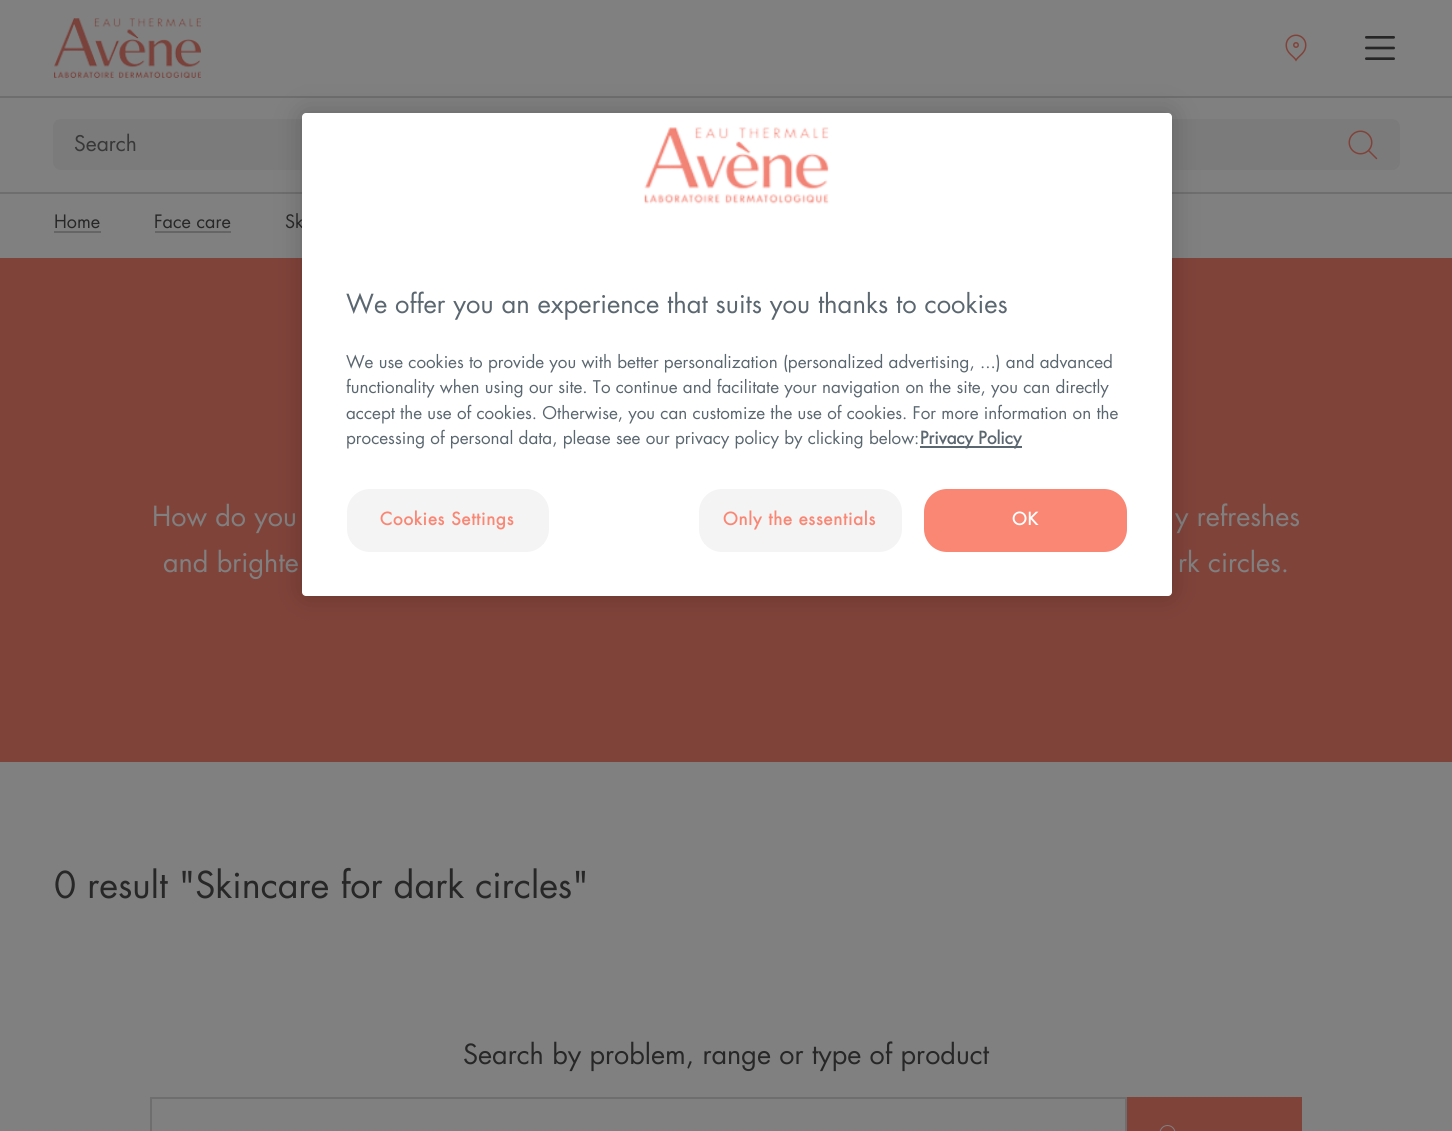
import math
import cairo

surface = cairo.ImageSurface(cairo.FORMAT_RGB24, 1452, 1131)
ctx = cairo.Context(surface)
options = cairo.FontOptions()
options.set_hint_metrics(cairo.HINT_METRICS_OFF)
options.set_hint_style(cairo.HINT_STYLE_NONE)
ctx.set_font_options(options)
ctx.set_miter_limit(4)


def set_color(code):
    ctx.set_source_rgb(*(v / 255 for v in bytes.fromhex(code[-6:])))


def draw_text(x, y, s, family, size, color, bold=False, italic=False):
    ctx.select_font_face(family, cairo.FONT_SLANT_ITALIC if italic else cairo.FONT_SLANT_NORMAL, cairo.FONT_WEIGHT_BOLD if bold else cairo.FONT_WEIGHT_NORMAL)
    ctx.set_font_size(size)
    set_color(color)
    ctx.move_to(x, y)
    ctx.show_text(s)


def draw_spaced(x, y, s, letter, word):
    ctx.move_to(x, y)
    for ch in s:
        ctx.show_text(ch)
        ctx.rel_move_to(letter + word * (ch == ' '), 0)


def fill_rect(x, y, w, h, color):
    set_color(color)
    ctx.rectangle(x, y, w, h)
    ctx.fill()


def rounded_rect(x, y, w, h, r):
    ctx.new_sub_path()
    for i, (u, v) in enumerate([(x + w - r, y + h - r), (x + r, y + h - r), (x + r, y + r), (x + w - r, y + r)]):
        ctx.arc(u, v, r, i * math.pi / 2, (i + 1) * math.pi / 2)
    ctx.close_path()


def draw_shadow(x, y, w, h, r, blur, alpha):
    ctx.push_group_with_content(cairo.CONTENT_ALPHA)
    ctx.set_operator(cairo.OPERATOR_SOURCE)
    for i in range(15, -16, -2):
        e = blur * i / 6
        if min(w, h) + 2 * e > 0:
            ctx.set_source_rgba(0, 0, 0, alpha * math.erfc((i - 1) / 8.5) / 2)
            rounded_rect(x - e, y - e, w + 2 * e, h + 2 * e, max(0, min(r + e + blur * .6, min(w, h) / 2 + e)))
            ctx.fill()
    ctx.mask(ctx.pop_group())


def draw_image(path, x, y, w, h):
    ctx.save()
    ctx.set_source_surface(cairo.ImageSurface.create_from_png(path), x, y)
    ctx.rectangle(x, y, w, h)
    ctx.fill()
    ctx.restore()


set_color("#808080")
ctx.paint()
fill_rect(0, 192, 1452, 2, "#6e6e6e")
draw_image("assets/img1.png", 54, 18, 147, 60)
draw_image("assets/img2.png", 1285, 34, 22, 28)
draw_image("assets/img3.png", 1365, 36, 30, 24)
fill_rect(0, 96, 1452, 2, "#6e6e6e")
rounded_rect(54, 120, 1345, 49, 7)
set_color("#7b7b7b")
ctx.stroke()
rounded_rect(54, 120, 1344, 48, 6)
ctx.fill()
draw_text(74, 151, "Search", "Futura", 21, "#383838")
draw_image("assets/img4.png", 1348, 130, 30, 30)
draw_text(54, 228, "Home", "Futura", 18, "#272727")
fill_rect(54, 231, 47, 2, "#656565")
draw_text(154, 228, "Face care", "Futura", 18, "#272727")
fill_rect(155, 231, 76, 2, "#656565")
draw_text(285, 228, "Sk", "Futura", 18, "#272727")
fill_rect(0, 258, 1452, 504, "#80433a")
draw_text(152, 526, "How do you", "Futura", 27, "#808080")
draw_text(1175, 526, "y refreshes", "Futura", 27, "#808080")
draw_text(163, 572, "and brighte", "Futura", 27, "#808080")
draw_text(1178, 572, "rk circles.", "Futura", 27, "#808080")
draw_text(54, 898, "0 result \"Skincare for dark circles\"", "Futura", 36, "#272727")
draw_text(463, 1064, "Search by problem, range or type of product", "Futura", 27, "#272727")
ctx.rectangle(151, 1098, 975, 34)
set_color("#6e6e6e")
ctx.stroke()
fill_rect(1127, 1097, 175, 34, "#80433a")
draw_image("assets/img5.png", 1159, 1125, 17, 6)
set_color("#000000")
draw_shadow(302, 113, 870, 483, 4, 13.5, 0.2)
set_color("#ffffff")
rounded_rect(302, 113, 870, 483, 4)
ctx.fill()
draw_image("assets/img6.png", 644, 127, 186, 77)
draw_text(346, 313, "We offer you an experience that suits you thanks to cookies", "Futura", 25.6, "#5b6770")
draw_text(346, 368, "We use cookies to provide you with better personalization (personalized advertising, ...) and advanced", "Futura", 17.05, "#5b6770")
draw_text(346, 393, "functionality when using our site. To continue and facilitate your navigation on the site, you can directly", "Futura", 17.05, "#5b6770")
draw_text(346, 419, "accept the use of cookies. Otherwise, you can customize the use of cookies. For more information on the", "Futura", 17.05, "#5b6770")
draw_text(346, 444, "processing of personal data, please see our privacy policy by clicking below:", "Futura", 17.05, "#5b6770")
fill_rect(920, 446, 102, 2, "#5b6770")
draw_text(920, 444, "Privacy Policy", "Futura", 17.05, "#5b6770", bold=True)
set_color("#f4f4f4")
rounded_rect(348, 490, 200, 61, 22)
ctx.fill_preserve()
ctx.stroke()
set_color("#fa8674")
draw_spaced(380, 525, "Cookies Settings", 0.8, 0)
set_color("#f4f4f4")
rounded_rect(700, 490, 201, 61, 22)
ctx.fill_preserve()
ctx.stroke()
set_color("#fa8674")
draw_spaced(723, 525, "Only the essentials", 0.8, 0)
rounded_rect(925, 490, 201, 61, 22)
ctx.fill_preserve()
ctx.stroke()
set_color("#ffffff")
draw_spaced(1012, 525, "OK", 0.8, 0)
surface.write_to_png("output.png")
